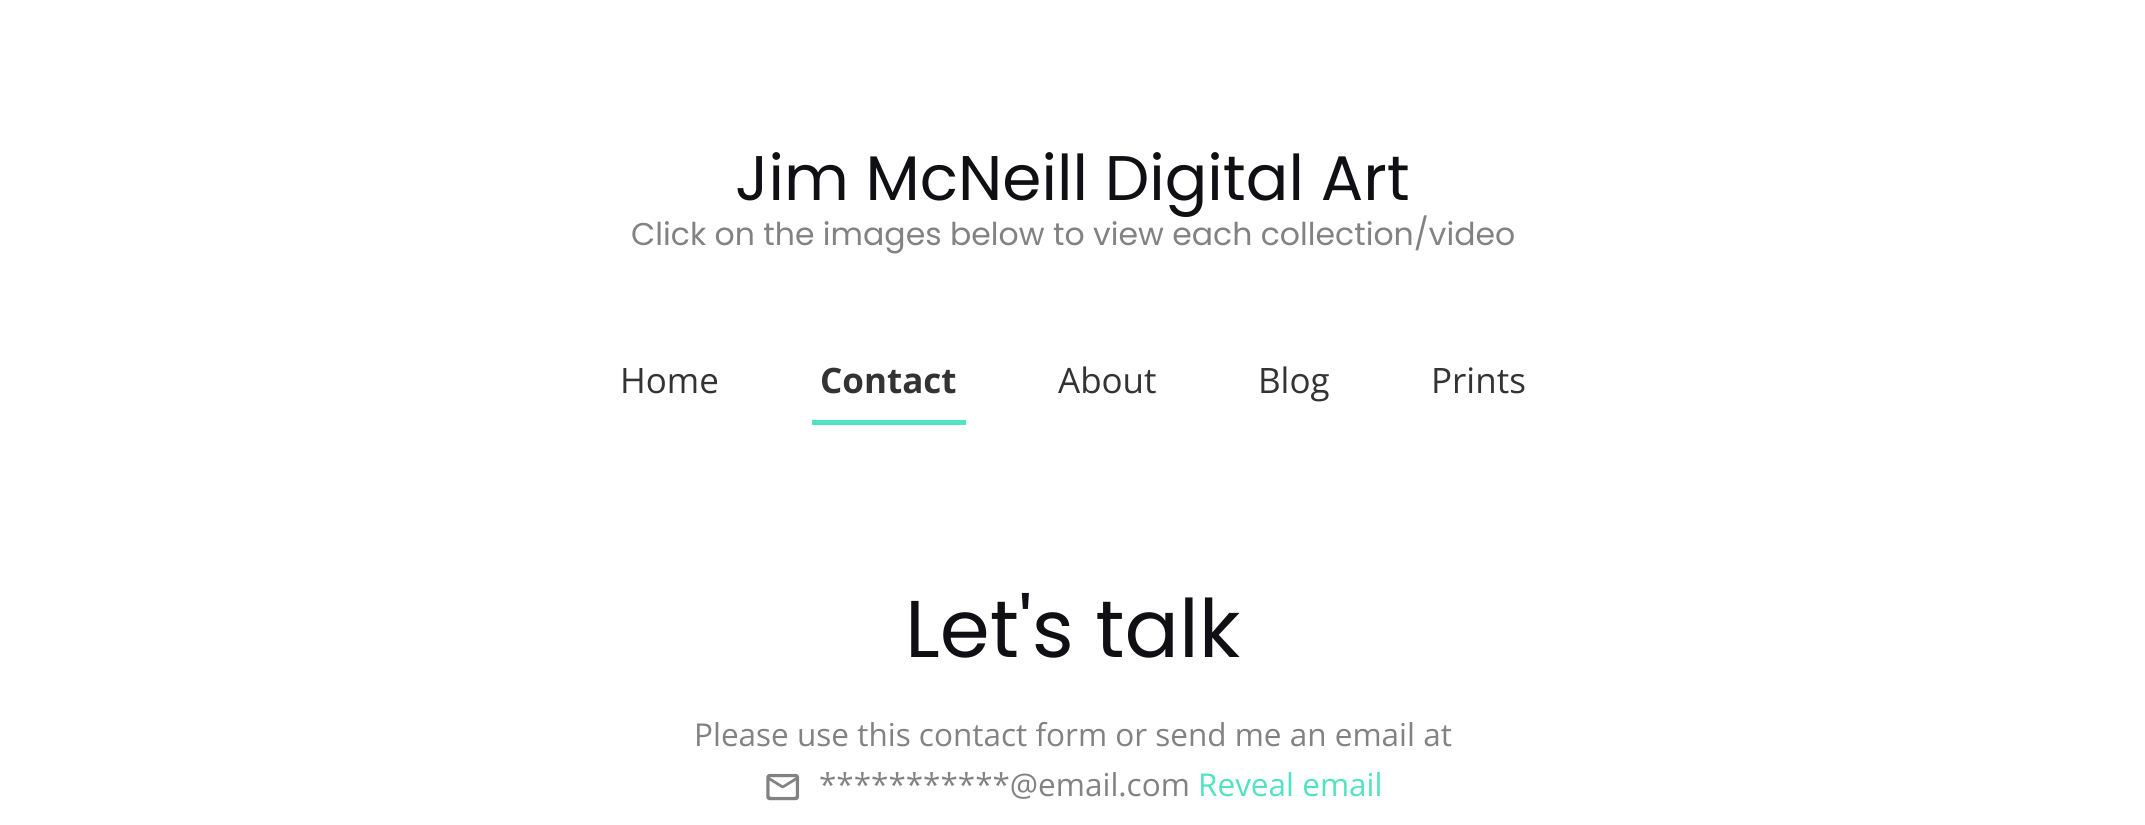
import math
import cairo

surface = cairo.ImageSurface(cairo.FORMAT_RGB24, 2145, 825)
ctx = cairo.Context(surface)
options = cairo.FontOptions()
options.set_hint_metrics(cairo.HINT_METRICS_OFF)
options.set_hint_style(cairo.HINT_STYLE_NONE)
ctx.set_font_options(options)
ctx.set_miter_limit(4)


def set_color(code):
    ctx.set_source_rgb(*(v / 255 for v in bytes.fromhex(code[-6:])))


def draw_text(x, y, s, family, size, color, bold=False, italic=False):
    ctx.select_font_face(family, cairo.FONT_SLANT_ITALIC if italic else cairo.FONT_SLANT_NORMAL, cairo.FONT_WEIGHT_BOLD if bold else cairo.FONT_WEIGHT_NORMAL)
    ctx.set_font_size(size)
    set_color(color)
    ctx.move_to(x, y)
    ctx.show_text(s)


def fill_rect(x, y, w, h, color):
    set_color(color)
    ctx.rectangle(x, y, w, h)
    ctx.fill()


def draw_image(path, x, y, w, h):
    ctx.save()
    ctx.set_source_surface(cairo.ImageSurface.create_from_png(path), x, y)
    ctx.rectangle(x, y, w, h)
    ctx.fill()
    ctx.restore()


set_color("#ffffff")
ctx.paint()
draw_text(735, 200, "Jim McNeill Digital Art", "Poppins", 63, "#101014")
draw_text(631, 245, "Click on the images below to view each collection/video", "Poppins", 31.5, "#828282")
draw_text(620, 393, "Home", "Open Sans", 35, "#333333")
fill_rect(812, 420, 154, 5, "#50e3c2")
draw_text(820, 393, "Contact", "Open Sans", 35, "#333333", bold=True)
draw_text(1058, 393, "About", "Open Sans", 35, "#333333")
draw_text(1258, 393, "Blog", "Open Sans", 35, "#333333")
draw_text(1431, 393, "Prints", "Open Sans", 35, "#333333")
draw_text(905, 657, "Let's talk", "Poppins", 80.5, "#101014")
draw_text(694, 746, "Please use this contact form or send me an email at", "Open Sans", 31.5, "#828282")
draw_image("assets/img1.png", 766, 773, 34, 28)
draw_text(819, 796, "***********@email.com", "Open Sans", 31.5, "#828282")
draw_text(1198, 796, "Reveal email", "Open Sans", 31.5, "#50e3c2")
surface.write_to_png("output.png")
